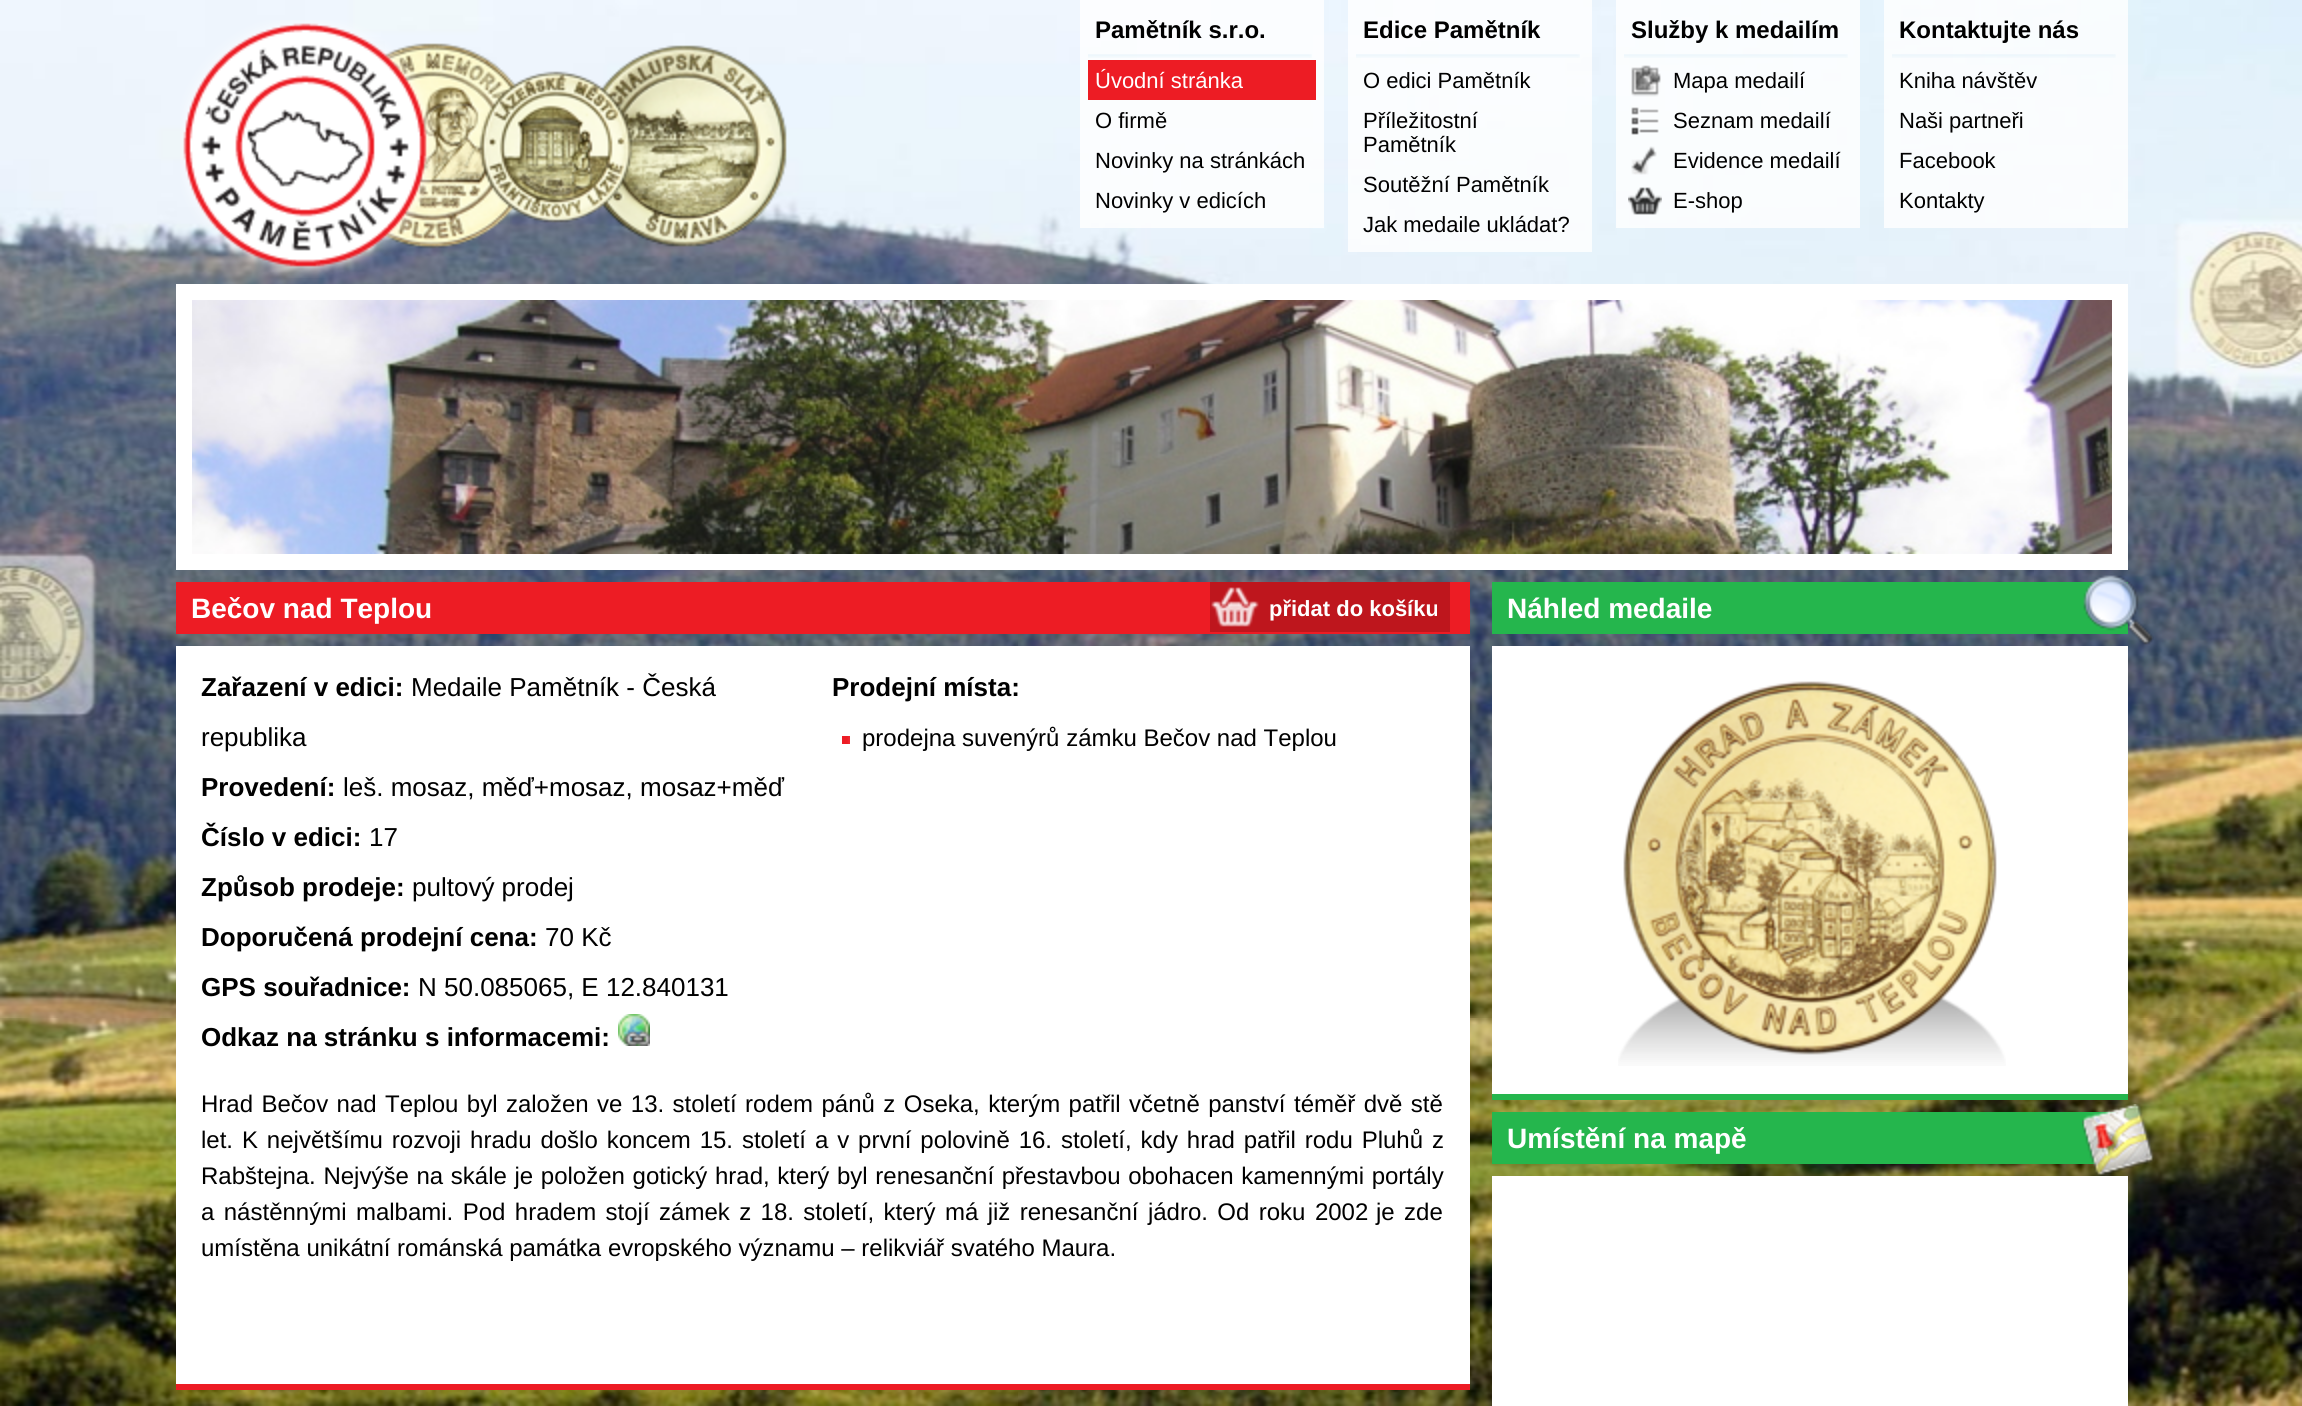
import math
import cairo

surface = cairo.ImageSurface(cairo.FORMAT_RGB24, 2302, 1406)
ctx = cairo.Context(surface)
options = cairo.FontOptions()
options.set_hint_metrics(cairo.HINT_METRICS_OFF)
options.set_hint_style(cairo.HINT_STYLE_NONE)
ctx.set_font_options(options)
ctx.set_miter_limit(4)


def set_color(code):
    ctx.set_source_rgb(*(v / 255 for v in bytes.fromhex(code[-6:])))


def draw_text(x, y, s, family, size, color, bold=False, italic=False):
    ctx.select_font_face(family, cairo.FONT_SLANT_ITALIC if italic else cairo.FONT_SLANT_NORMAL, cairo.FONT_WEIGHT_BOLD if bold else cairo.FONT_WEIGHT_NORMAL)
    ctx.set_font_size(size)
    set_color(color)
    ctx.move_to(x, y)
    ctx.show_text(s)


def draw_spaced(x, y, s, letter, word):
    ctx.move_to(x, y)
    for ch in s:
        ctx.show_text(ch)
        ctx.rel_move_to(letter + word * (ch == ' '), 0)


def fill_rect(x, y, w, h, color):
    set_color(color)
    ctx.rectangle(x, y, w, h)
    ctx.fill()


def draw_image(path, x, y, w, h):
    ctx.save()
    ctx.set_source_surface(cairo.ImageSurface.create_from_png(path), x, y)
    ctx.rectangle(x, y, w, h)
    ctx.fill()
    ctx.restore()


set_color("#ffffff")
ctx.paint()
draw_image("assets/img1.png", 0, 0, 2302, 1406)
draw_image("assets/img2.png", 180, 20, 607, 258)
ctx.set_source_rgba(1, 1, 1, 0.8)
ctx.rectangle(1080, 0, 244, 228)
ctx.fill()
draw_image("assets/img3.png", 1088, 54, 224, 4)
draw_text(1095, 38, "Pamětník s.r.o.", "Liberation Sans", 24, "#000000", bold=True)
fill_rect(1088, 60, 228, 40, "#ed1c24")
draw_text(1095, 88, "Úvodní stránka", "Liberation Sans", 22, "#ffffff")
draw_text(1095, 128, "O firmě", "Liberation Sans", 22, "#000000")
draw_text(1095, 168, "Novinky na stránkách", "Liberation Sans", 22, "#000000")
draw_text(1095, 208, "Novinky v edicích", "Liberation Sans", 22, "#000000")
ctx.set_source_rgba(1, 1, 1, 0.8)
ctx.rectangle(1348, 0, 244, 252)
ctx.fill()
draw_image("assets/img4.png", 1356, 54, 224, 4)
draw_text(1363, 38, "Edice Pamětník", "Liberation Sans", 24, "#000000", bold=True)
draw_text(1363, 88, "O edici Pamětník", "Liberation Sans", 22, "#000000")
draw_text(1363, 128, "Příležitostní", "Liberation Sans", 22, "#000000")
draw_text(1363, 152, "Pamětník", "Liberation Sans", 22, "#000000")
draw_text(1363, 192, "Soutěžní Pamětník", "Liberation Sans", 22, "#000000")
draw_text(1363, 232, "Jak medaile ukládat?", "Liberation Sans", 22, "#000000")
ctx.set_source_rgba(1, 1, 1, 0.8)
ctx.rectangle(1616, 0, 244, 228)
ctx.fill()
draw_image("assets/img5.png", 1624, 54, 224, 4)
draw_text(1631, 38, "Služby k medailím", "Liberation Sans", 24, "#000000", bold=True)
draw_image("assets/img6.png", 1631, 65, 30, 32)
draw_text(1673, 88, "Mapa medailí", "Liberation Sans", 22, "#000000")
draw_image("assets/img7.png", 1631, 107, 28, 28)
draw_text(1673, 128, "Seznam medailí", "Liberation Sans", 22, "#000000")
draw_image("assets/img8.png", 1631, 146, 26, 29)
draw_text(1673, 168, "Evidence medailí", "Liberation Sans", 22, "#000000")
draw_image("assets/img9.png", 1628, 187, 34, 28)
draw_text(1673, 208, "E-shop", "Liberation Sans", 22, "#000000")
ctx.set_source_rgba(1, 1, 1, 0.8)
ctx.rectangle(1884, 0, 244, 228)
ctx.fill()
draw_image("assets/img10.png", 1892, 54, 224, 4)
draw_text(1899, 38, "Kontaktujte nás", "Liberation Sans", 24, "#000000", bold=True)
draw_text(1899, 88, "Kniha návštěv", "Liberation Sans", 22, "#000000")
draw_text(1899, 128, "Naši partneři", "Liberation Sans", 22, "#000000")
draw_text(1899, 168, "Facebook", "Liberation Sans", 22, "#000000")
draw_text(1899, 208, "Kontakty", "Liberation Sans", 22, "#000000")
fill_rect(176, 284, 1952, 286, "#ffffff")
draw_image("assets/img11.png", 192, 300, 1920, 254)
fill_rect(176, 582, 1294, 52, "#ed1c24")
draw_text(191, 618, "Bečov nad Teplou", "Liberation Sans", 28, "#ffffff", bold=True)
fill_rect(1210, 582, 240, 50, "#be161d")
draw_image("assets/img12.png", 1211, 587, 48, 40)
draw_text(1269, 616, "přidat do košíku", "Liberation Sans", 22, "#ffffff", bold=True)
fill_rect(176, 646, 1294, 738, "#ffffff")
fill_rect(176, 1384, 1294, 6, "#ed1c24")
draw_text(201, 696, "Zařazení v edici:", "Liberation Sans", 26, "#000000", bold=True)
draw_text(411, 696, "Medaile Pamětník - Česká", "Liberation Sans", 26, "#000000")
draw_text(201, 746, "republika", "Liberation Sans", 26, "#000000")
draw_text(201, 796, "Provedení:", "Liberation Sans", 26, "#000000", bold=True)
draw_text(343, 796, "leš. mosaz, měď+mosaz, mosaz+měď", "Liberation Sans", 26, "#000000")
draw_text(201, 846, "Číslo v edici:", "Liberation Sans", 26, "#000000", bold=True)
draw_text(369, 846, "17", "Liberation Sans", 26, "#000000")
draw_text(201, 896, "Způsob prodeje:", "Liberation Sans", 26, "#000000", bold=True)
draw_text(412, 896, "pultový prodej", "Liberation Sans", 26, "#000000")
draw_text(201, 946, "Doporučená prodejní cena:", "Liberation Sans", 26, "#000000", bold=True)
draw_text(545, 946, "70 Kč", "Liberation Sans", 26, "#000000")
draw_text(201, 996, "GPS souřadnice:", "Liberation Sans", 26, "#000000", bold=True)
draw_text(418, 996, "N 50.085065, E 12.840131", "Liberation Sans", 26, "#000000")
draw_text(201, 1046, "Odkaz na stránku s informacemi:", "Liberation Sans", 26, "#000000", bold=True)
draw_image("assets/img13.png", 618, 1014, 32, 32)
draw_text(832, 696, "Prodejní místa:", "Liberation Sans", 26, "#000000", bold=True)
draw_image("assets/img14.png", 842, 736, 8, 8)
draw_text(862, 746, "prodejna suvenýrů zámku Bečov nad Teplou", "Liberation Sans", 24, "#000000")
draw_spaced(201, 1112, "Hrad Bečov nad Teplou byl založen ve 13. století rodem pánů z Oseka, kterým patřil včetně panství téměř dvě stě", 0, 1.75)
draw_spaced(201, 1148, "let. K největšímu rozvoji hradu došlo koncem 15. století a v první polovině 16. století, kdy hrad patřil rodu Pluhů z", 0, 2.25)
draw_spaced(201, 1184, "Rabštejna. Nejvýše na skále je položen gotický hrad, který byl renesanční přestavbou obohacen kamennými portály", 0, 1)
draw_spaced(201, 1220, "a nástěnnými malbami. Pod hradem stojí zámek z 18. století, který má již renesanční jádro. Od roku 2002", 0, 2.75)
draw_spaced(1376, 1220, "je zde", 0, 2.75)
draw_text(201, 1256, "umístěna unikátní románská památka evropského významu – relikviář svatého Maura.", "Liberation Sans", 24, "#000000")
fill_rect(1492, 582, 636, 52, "#25b64d")
draw_text(1507, 618, "Náhled medaile", "Liberation Sans", 28, "#ffffff", bold=True)
draw_image("assets/img15.png", 2083, 574, 71, 71)
fill_rect(1492, 646, 636, 448, "#ffffff")
fill_rect(1492, 1094, 636, 6, "#25b64d")
draw_image("assets/img16.png", 1618, 995, 388, 71)
draw_image("assets/img17.png", 1623, 681, 374, 374)
fill_rect(1492, 1112, 625, 52, "#25b64d")
draw_text(1507, 1148, "Umístění na mapě", "Liberation Sans", 28, "#ffffff", bold=True)
draw_image("assets/img18.png", 2082, 1104, 72, 72)
fill_rect(1492, 1176, 636, 230, "#ffffff")
surface.write_to_png("output.png")
